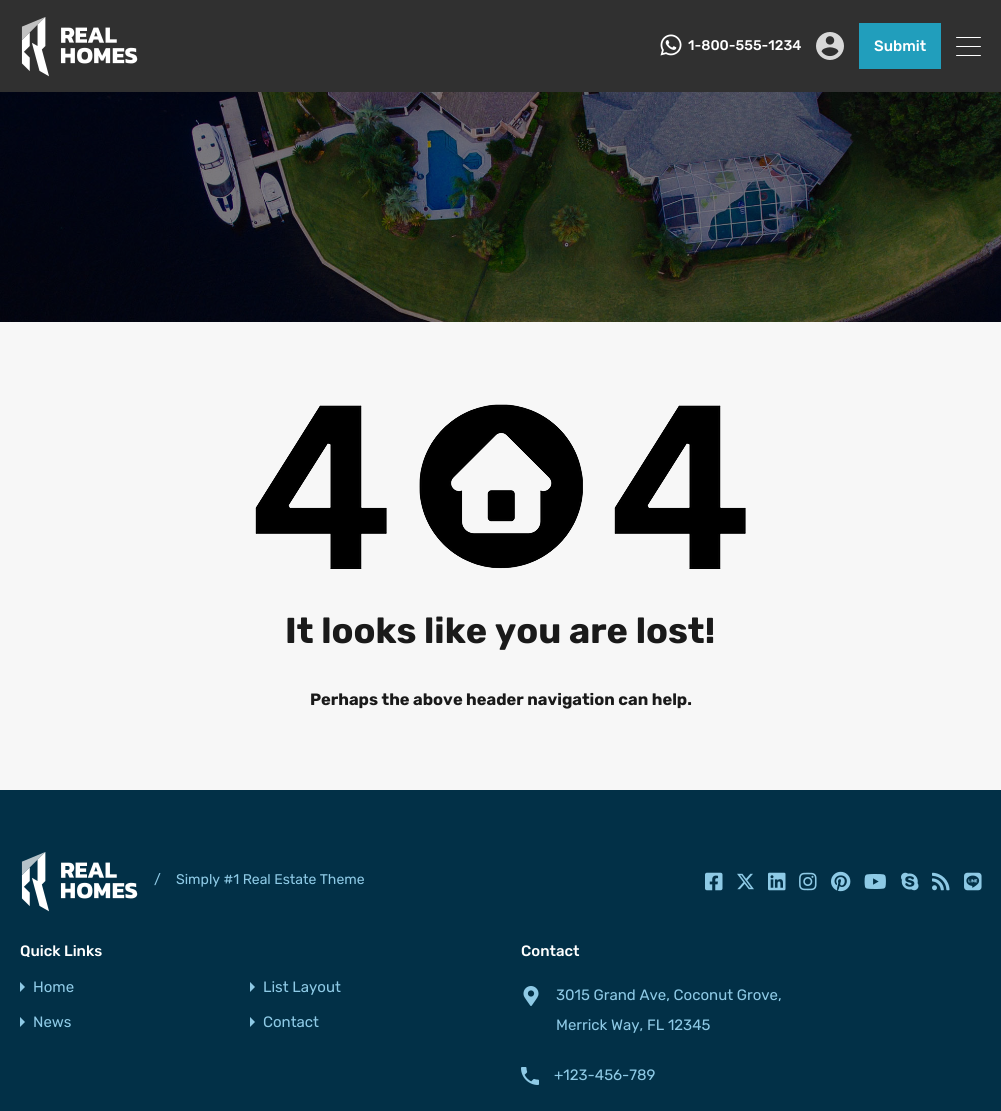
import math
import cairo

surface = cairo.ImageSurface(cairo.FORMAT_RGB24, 1001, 1111)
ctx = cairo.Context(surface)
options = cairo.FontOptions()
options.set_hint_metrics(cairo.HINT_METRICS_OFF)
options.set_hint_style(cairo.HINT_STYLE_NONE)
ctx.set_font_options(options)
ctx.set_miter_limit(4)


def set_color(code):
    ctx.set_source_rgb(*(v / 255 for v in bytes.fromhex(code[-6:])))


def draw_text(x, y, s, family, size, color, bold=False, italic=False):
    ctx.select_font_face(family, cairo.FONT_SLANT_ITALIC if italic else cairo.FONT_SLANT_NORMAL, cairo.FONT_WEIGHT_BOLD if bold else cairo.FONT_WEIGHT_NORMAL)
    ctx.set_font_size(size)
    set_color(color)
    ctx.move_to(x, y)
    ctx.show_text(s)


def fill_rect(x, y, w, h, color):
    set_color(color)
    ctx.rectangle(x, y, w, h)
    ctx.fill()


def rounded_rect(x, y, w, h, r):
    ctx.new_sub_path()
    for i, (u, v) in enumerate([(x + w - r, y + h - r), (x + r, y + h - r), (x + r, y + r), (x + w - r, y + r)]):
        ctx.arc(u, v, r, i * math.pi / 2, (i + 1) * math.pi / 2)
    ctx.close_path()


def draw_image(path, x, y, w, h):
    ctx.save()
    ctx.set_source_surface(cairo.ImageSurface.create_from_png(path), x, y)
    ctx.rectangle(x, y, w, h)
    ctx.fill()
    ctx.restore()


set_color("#f7f7f7")
ctx.paint()
fill_rect(0, 0, 1001, 92, "#303030")
draw_image("assets/img1.png", 21, 17, 117, 60)
draw_image("assets/img2.png", 660, 34, 22, 22)
draw_text(688, 50, "1-800-555-1234", "Rubik Medium", 14, "#ffffff")
draw_image("assets/img3.png", 816, 32, 28, 28)
fill_rect(859, 23, 82, 46, "#219ebc")
draw_text(874, 51, "Submit", "Rubik Medium", 15, "#ffffff")
rounded_rect(956, 46, 25, 1, 0.5)
ctx.fill()
rounded_rect(956, 37, 25, 1, 0.5)
ctx.fill()
rounded_rect(956, 55, 25, 1, 0.5)
ctx.fill()
draw_image("assets/img4.png", 0, 92, 1001, 230)
draw_image("assets/img5.png", 255, 404, 491, 165)
draw_text(285, 643, "It looks like you are lost!", "Rubik", 36, "#1a1a1a", bold=True)
draw_text(310, 705, "Perhaps the above header navigation can help.", "Rubik", 16.4, "#1a1a1a", bold=True)
fill_rect(0, 790, 1001, 321, "#023047")
draw_image("assets/img6.png", 21, 852, 117, 60)
draw_text(154, 884, "/", "Rubik", 14, "#8ecae6")
draw_text(176, 884, "Simply #1 Real Estate Theme", "Rubik", 14, "#8ecae6")
draw_image("assets/img7.png", 705, 872, 18, 19)
draw_image("assets/img8.png", 737, 873, 17, 17)
draw_image("assets/img9.png", 768, 872, 18, 19)
draw_image("assets/img10.png", 799, 872, 18, 19)
draw_image("assets/img11.png", 831, 871, 20, 21)
draw_image("assets/img12.png", 864, 874, 22, 15)
draw_image("assets/img13.png", 901, 872, 18, 19)
draw_image("assets/img14.png", 932, 872, 18, 19)
draw_image("assets/img15.png", 964, 872, 18, 19)
draw_text(20, 956, "Quick Links", "Rubik Medium", 15, "#ffffff")
set_color("#8ecae6")
ctx.new_path()
ctx.move_to(20, 992)
ctx.line_to(20, 982)
ctx.line_to(25, 987)
ctx.close_path()
ctx.fill()
draw_text(33, 992, "Home", "Rubik", 15, "#8ecae6")
ctx.new_path()
ctx.move_to(250, 992)
ctx.line_to(250, 982)
ctx.line_to(255, 987)
ctx.close_path()
ctx.fill()
draw_text(263, 992, "List Layout", "Rubik", 15, "#8ecae6")
ctx.new_path()
ctx.move_to(20, 1027)
ctx.line_to(20, 1017)
ctx.line_to(25, 1022)
ctx.close_path()
ctx.fill()
draw_text(33, 1027, "News", "Rubik", 15, "#8ecae6")
ctx.new_path()
ctx.move_to(250, 1027)
ctx.line_to(250, 1017)
ctx.line_to(255, 1022)
ctx.close_path()
ctx.fill()
draw_text(263, 1027, "Contact", "Rubik", 15, "#8ecae6")
draw_text(521, 956, "Contact", "Rubik Medium", 15, "#ffffff")
draw_image("assets/img16.png", 523, 986, 16, 20)
draw_text(556, 1000, "3015 Grand Ave, Coconut Grove,", "Rubik", 15, "#8ecae6")
draw_text(556, 1030, "Merrick Way, FL 12345", "Rubik", 15, "#8ecae6")
draw_image("assets/img17.png", 521, 1067, 18, 18)
draw_text(554, 1080, "+123-456-789", "Rubik", 15, "#8ecae6")
surface.write_to_png("output.png")
